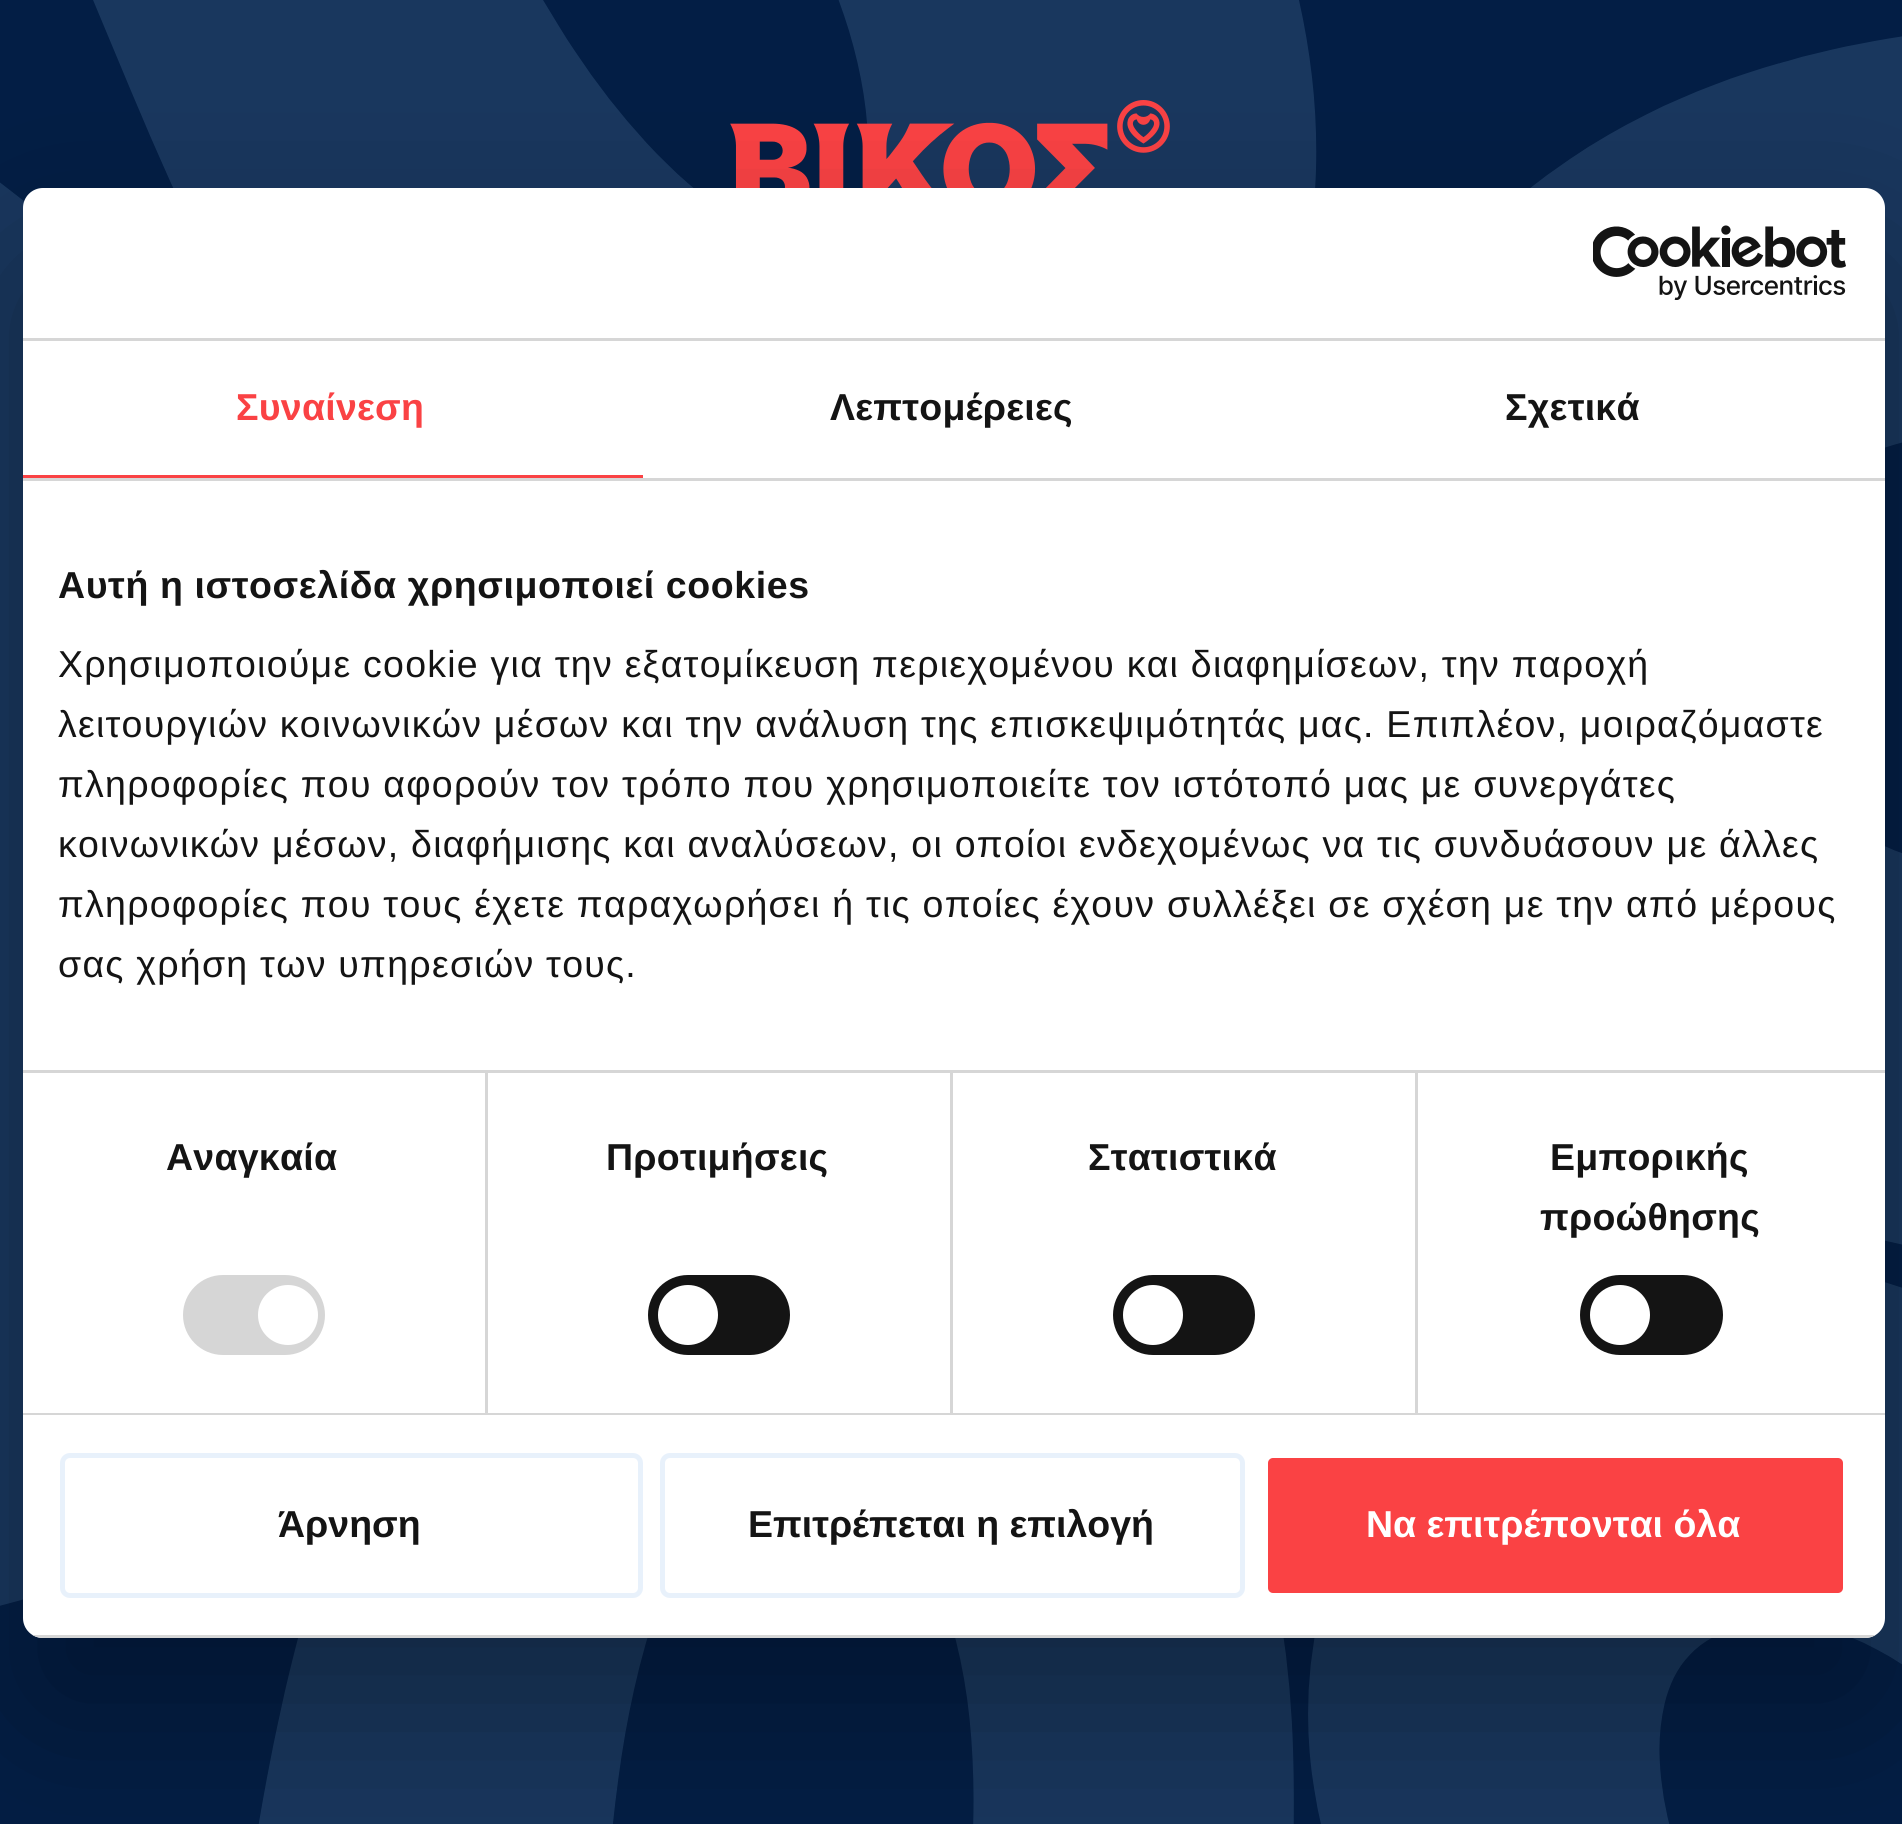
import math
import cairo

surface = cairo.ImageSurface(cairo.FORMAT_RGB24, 1902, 1824)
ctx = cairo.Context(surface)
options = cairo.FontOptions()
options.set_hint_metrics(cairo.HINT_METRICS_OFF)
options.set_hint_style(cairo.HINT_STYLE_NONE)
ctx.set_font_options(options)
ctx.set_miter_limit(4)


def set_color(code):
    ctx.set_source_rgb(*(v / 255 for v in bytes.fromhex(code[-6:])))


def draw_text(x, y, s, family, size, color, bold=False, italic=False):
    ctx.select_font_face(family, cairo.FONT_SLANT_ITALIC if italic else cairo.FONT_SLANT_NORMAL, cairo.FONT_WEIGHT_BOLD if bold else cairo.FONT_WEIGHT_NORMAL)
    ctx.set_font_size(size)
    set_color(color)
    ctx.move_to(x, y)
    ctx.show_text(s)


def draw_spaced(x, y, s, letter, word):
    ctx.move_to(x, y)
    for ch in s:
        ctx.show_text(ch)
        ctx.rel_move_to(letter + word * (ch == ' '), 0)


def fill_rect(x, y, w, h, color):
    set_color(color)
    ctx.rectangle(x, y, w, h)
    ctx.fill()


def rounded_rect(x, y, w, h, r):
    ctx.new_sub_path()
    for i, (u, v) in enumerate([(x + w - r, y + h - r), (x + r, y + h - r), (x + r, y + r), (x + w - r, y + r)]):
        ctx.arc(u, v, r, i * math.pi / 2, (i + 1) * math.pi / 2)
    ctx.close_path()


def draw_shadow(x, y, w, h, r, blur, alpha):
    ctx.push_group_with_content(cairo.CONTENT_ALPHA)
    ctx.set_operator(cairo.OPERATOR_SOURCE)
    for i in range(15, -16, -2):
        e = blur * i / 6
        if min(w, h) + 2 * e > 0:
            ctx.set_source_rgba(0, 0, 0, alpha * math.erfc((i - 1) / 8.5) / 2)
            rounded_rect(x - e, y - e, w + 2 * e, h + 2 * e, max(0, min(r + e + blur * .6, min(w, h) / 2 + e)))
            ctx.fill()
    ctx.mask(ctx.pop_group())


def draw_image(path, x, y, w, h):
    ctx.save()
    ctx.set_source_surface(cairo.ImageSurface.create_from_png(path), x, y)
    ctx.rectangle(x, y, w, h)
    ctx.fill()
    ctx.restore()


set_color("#031e45")
ctx.paint()
draw_image("assets/img1.png", 0, 0, 1902, 1824)
draw_image("assets/img2.png", 730, 100, 440, 88)
ctx.save()
ctx.set_fill_rule(cairo.FILL_RULE_EVEN_ODD)
ctx.new_path()
ctx.move_to(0, 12)
ctx.line_to(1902, 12)
ctx.line_to(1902, 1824)
ctx.line_to(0, 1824)
ctx.close_path()
ctx.move_to(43, 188)
ctx.line_to(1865, 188)
ctx.curve_to(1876, 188, 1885, 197, 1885, 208)
ctx.line_to(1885, 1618)
ctx.curve_to(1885, 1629, 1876, 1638, 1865, 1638)
ctx.line_to(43, 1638)
ctx.curve_to(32, 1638, 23, 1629, 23, 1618)
ctx.line_to(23, 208)
ctx.curve_to(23, 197, 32, 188, 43, 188)
ctx.close_path()
ctx.clip()
set_color("#000000")
draw_shadow(23, 268, 1862, 1450, 20, 85, 0.3)
ctx.restore()
set_color("#ffffff")
rounded_rect(23, 188, 1862, 1450, 20)
ctx.fill()
fill_rect(23, 338, 1862, 3, "#d6d6d6")
draw_image("assets/img3.png", 1593, 225, 253, 75)
fill_rect(23, 478, 1862, 3, "#d6d6d6")
fill_rect(23, 475, 620, 3, "#fa4244")
ctx.select_font_face("Liberation Sans", cairo.FONT_SLANT_NORMAL, cairo.FONT_WEIGHT_BOLD)
ctx.set_font_size(37.5)
draw_spaced(236, 420, "Συναίνεση", 0.25, 0)
set_color("#141414")
draw_spaced(830, 420, "Λεπτομέρειες", 0.25, 0)
draw_spaced(1505, 420, "Σχετικά", 0.25, 0)
fill_rect(23, 1070, 1862, 3, "#d6d6d6")
set_color("#141414")
draw_spaced(58, 598, "Αυτή η ιστοσελίδα χρησιμοποιεί cookies", 0.6, 0)
ctx.select_font_face("Liberation Sans")
draw_spaced(58, 677, "Χρησιμοποιούμε cookie για την εξατομίκευση περιεχομένου και διαφημίσεων, την παροχή", 1.25, 0)
draw_spaced(58, 737, "λειτουργιών κοινωνικών μέσων και την ανάλυση της επισκεψιμότητάς μας. Επιπλέον, μοιραζόμαστε", 1.25, 0)
draw_spaced(58, 797, "πληροφορίες που αφορούν τον τρόπο που χρησιμοποιείτε τον ιστότοπό μας με συνεργάτες", 1.25, 0)
draw_spaced(58, 857, "κοινωνικών μέσων, διαφήμισης και αναλύσεων, οι οποίοι ενδεχομένως να τις συνδυάσουν με άλλες", 1.25, 0)
draw_spaced(58, 917, "πληροφορίες που τους έχετε παραχωρήσει ή τις οποίες έχουν συλλέξει σε σχέση με την από μέρους", 1.25, 0)
draw_spaced(58, 977, "σας χρήση των υπηρεσιών τους.", 1.25, 0)
fill_rect(23, 1413, 1862, 2, "#d6d6d6")
fill_rect(485, 1073, 3, 340, "#d6d6d6")
ctx.select_font_face("Liberation Sans", cairo.FONT_SLANT_NORMAL, cairo.FONT_WEIGHT_BOLD)
set_color("#141414")
draw_spaced(166, 1170, "Αναγκαία", 0.25, 0)
set_color("#d6d6d6")
rounded_rect(183, 1275, 142, 80, 40)
ctx.fill()
set_color("#ffffff")
ctx.arc(288, 1315, 30, 0, 2 * math.pi)
ctx.fill()
fill_rect(950, 1073, 3, 340, "#d6d6d6")
set_color("#141414")
draw_spaced(606, 1170, "Προτιμήσεις", 0.25, 0)
rounded_rect(648, 1275, 142, 80, 40)
ctx.fill()
set_color("#ffffff")
ctx.arc(688, 1315, 30, 0, 2 * math.pi)
ctx.fill()
fill_rect(1415, 1073, 3, 340, "#d6d6d6")
set_color("#141414")
draw_spaced(1088, 1170, "Στατιστικά", 0.25, 0)
rounded_rect(1113, 1275, 142, 80, 40)
ctx.fill()
set_color("#ffffff")
ctx.arc(1153, 1315, 30, 0, 2 * math.pi)
ctx.fill()
set_color("#141414")
draw_spaced(1550, 1170, "Εμπορικής", 0.25, 0)
draw_spaced(1540, 1230, "προώθησης", 0.25, 0)
rounded_rect(1580, 1275, 143, 80, 40)
ctx.fill()
set_color("#ffffff")
ctx.arc(1620, 1315, 30, 0, 2 * math.pi)
ctx.fill()
ctx.save()
rounded_rect(23, 188, 1862, 1450, 20)
ctx.clip()
fill_rect(32, 1635, 1844, 3, "#d6d6d6")
ctx.restore()
rounded_rect(62.5, 1455.5, 578, 140, 7.5)
set_color("#e8f1fb")
ctx.set_line_width(5)
ctx.stroke()
draw_text(278, 1537, "Άρνηση", "Liberation Sans", 37.5, "#141414", bold=True)
rounded_rect(662.5, 1455.5, 580, 140, 7.5)
set_color("#e8f1fb")
ctx.stroke()
draw_text(748, 1537, "Επιτρέπεται η επιλογή", "Liberation Sans", 37.5, "#141414", bold=True)
set_color("#fa4244")
rounded_rect(1265.5, 1455.5, 580, 140, 7.5)
ctx.fill_preserve()
set_color("#ffffff")
ctx.stroke()
draw_text(1366, 1537, "Να επιτρέπονται όλα", "Liberation Sans", 37.5, "#ffffff", bold=True)
surface.write_to_png("output.png")
